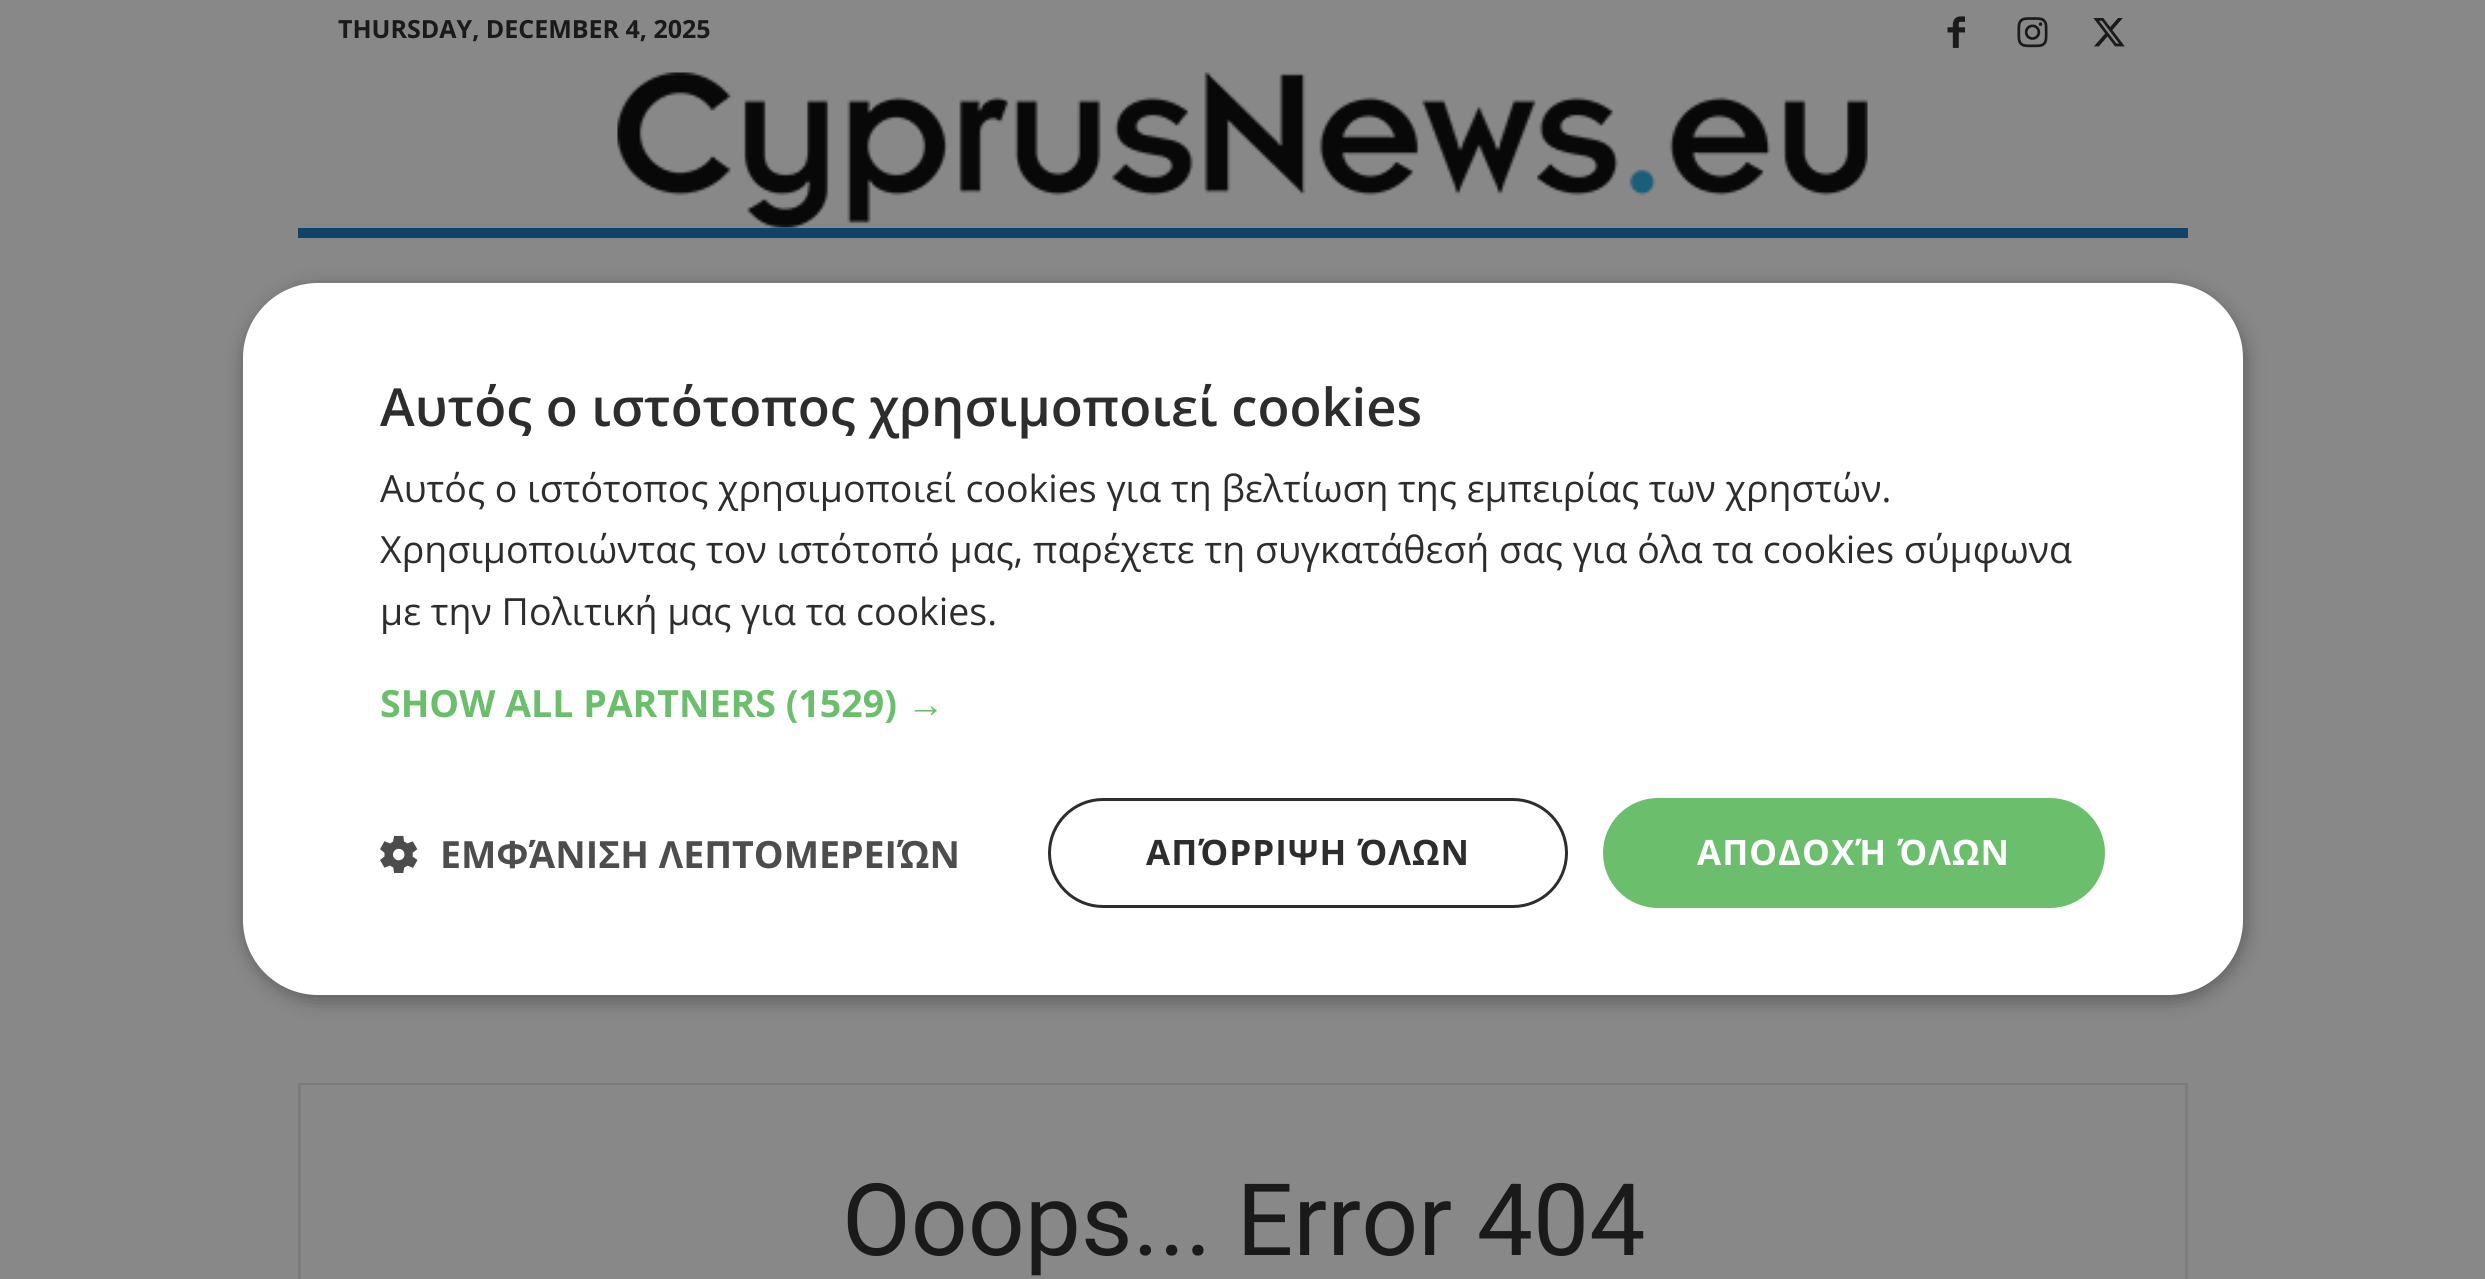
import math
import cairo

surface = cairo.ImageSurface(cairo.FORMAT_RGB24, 2485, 1279)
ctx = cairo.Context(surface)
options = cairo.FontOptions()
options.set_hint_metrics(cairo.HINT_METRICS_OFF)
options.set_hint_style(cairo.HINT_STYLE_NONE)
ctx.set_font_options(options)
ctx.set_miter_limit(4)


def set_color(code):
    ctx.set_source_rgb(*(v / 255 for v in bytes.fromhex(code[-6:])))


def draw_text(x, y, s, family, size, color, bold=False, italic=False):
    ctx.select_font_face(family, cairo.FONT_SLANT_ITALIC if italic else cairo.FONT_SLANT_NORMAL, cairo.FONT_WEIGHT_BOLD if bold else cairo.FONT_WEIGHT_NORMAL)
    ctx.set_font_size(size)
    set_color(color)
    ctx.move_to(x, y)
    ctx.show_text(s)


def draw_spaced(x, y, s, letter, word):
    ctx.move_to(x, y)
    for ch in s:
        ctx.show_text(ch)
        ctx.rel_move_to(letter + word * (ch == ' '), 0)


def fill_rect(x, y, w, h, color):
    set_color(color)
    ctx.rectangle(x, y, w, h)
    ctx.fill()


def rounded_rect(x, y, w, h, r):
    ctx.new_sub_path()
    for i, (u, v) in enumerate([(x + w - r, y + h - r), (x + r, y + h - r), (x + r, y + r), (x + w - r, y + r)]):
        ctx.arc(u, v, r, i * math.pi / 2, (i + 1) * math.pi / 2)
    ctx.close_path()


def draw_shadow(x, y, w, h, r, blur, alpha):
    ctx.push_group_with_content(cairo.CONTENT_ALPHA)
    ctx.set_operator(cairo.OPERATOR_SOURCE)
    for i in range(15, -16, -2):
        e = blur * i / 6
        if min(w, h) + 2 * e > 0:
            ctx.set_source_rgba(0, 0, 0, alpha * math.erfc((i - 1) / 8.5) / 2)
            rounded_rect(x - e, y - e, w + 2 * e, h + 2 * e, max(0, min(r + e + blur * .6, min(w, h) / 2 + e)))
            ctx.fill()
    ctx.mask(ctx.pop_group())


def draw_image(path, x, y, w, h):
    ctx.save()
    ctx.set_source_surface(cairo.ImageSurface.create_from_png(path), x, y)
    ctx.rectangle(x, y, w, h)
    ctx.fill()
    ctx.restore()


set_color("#888888")
ctx.paint()
draw_text(338, 38, "THURSDAY, DECEMBER 4, 2025", "Open Sans", 25, "#1a1a1a", bold=True)
draw_image("assets/img1.png", 1947, 16, 18, 32)
draw_image("assets/img2.png", 2017, 17, 31, 31)
draw_image("assets/img3.png", 2093, 18, 32, 29)
draw_image("assets/img4.png", 617, 72, 1251, 156)
fill_rect(298, 228, 1890, 10, "#104367")
fill_rect(298, 1083, 1890, 2, "#7c7c7c")
fill_rect(298, 1085, 3, 194, "#7c7c7c")
draw_text(842, 1255, "Ooops... Error 404", "Roboto", 100, "#1a1a1a")
fill_rect(2185, 1085, 3, 194, "#7c7c7c")
set_color("#000000")
draw_shadow(245, 288, 2000, 712, 75, 10, 0.35)
set_color("#ffffff")
rounded_rect(243, 283, 2000, 712, 75)
ctx.fill()
draw_text(380, 426, "Αυτός ο ιστότοπος χρησιμοποιεί cookies", "Open Sans SemiBold", 52.5, "#2d2d2d")
draw_text(380, 502, "Αυτός ο ιστότοπος χρησιμοποιεί cookies για τη βελτίωση της εμπειρίας των χρηστών.", "Open Sans", 37.5, "#2d2d2d")
draw_text(380, 563, "Χρησιμοποιώντας τον ιστότοπό μας, παρέχετε τη συγκατάθεσή σας για όλα τα cookies σύμφωνα", "Open Sans", 37.5, "#2d2d2d")
draw_text(380, 625, "με την Πολιτική μας για τα cookies.", "Open Sans", 37.5, "#2d2d2d")
draw_text(380, 717, "SHOW ALL PARTNERS (1529)", "Open Sans", 37.5, "#6bbe6b", bold=True)
draw_text(907, 717, "→", "Liberation Sans", 37.5, "#6bbe6b", bold=True)
draw_image("assets/img5.png", 380, 835, 38, 38)
draw_text(440, 868, "ΕΜΦΆΝΙΣΗ ΛΕΠΤΟΜΕΡΕΙΏΝ", "Open Sans", 37.5, "#4d4d4d", bold=True)
rounded_rect(1049.5, 799.5, 517, 107, 53.5)
set_color("#2d2d2d")
ctx.set_line_width(3)
ctx.stroke()
ctx.set_font_size(35)
draw_spaced(1146, 865, "ΑΠΌΡΡΙΨΗ ΌΛΩΝ", 1, 0)
set_color("#6bbe6b")
rounded_rect(1603, 798, 502, 110, 55)
ctx.fill()
set_color("#ffffff")
draw_spaced(1697, 865, "ΑΠΟΔΟΧΉ ΌΛΩΝ", 1, 0)
surface.write_to_png("output.png")
